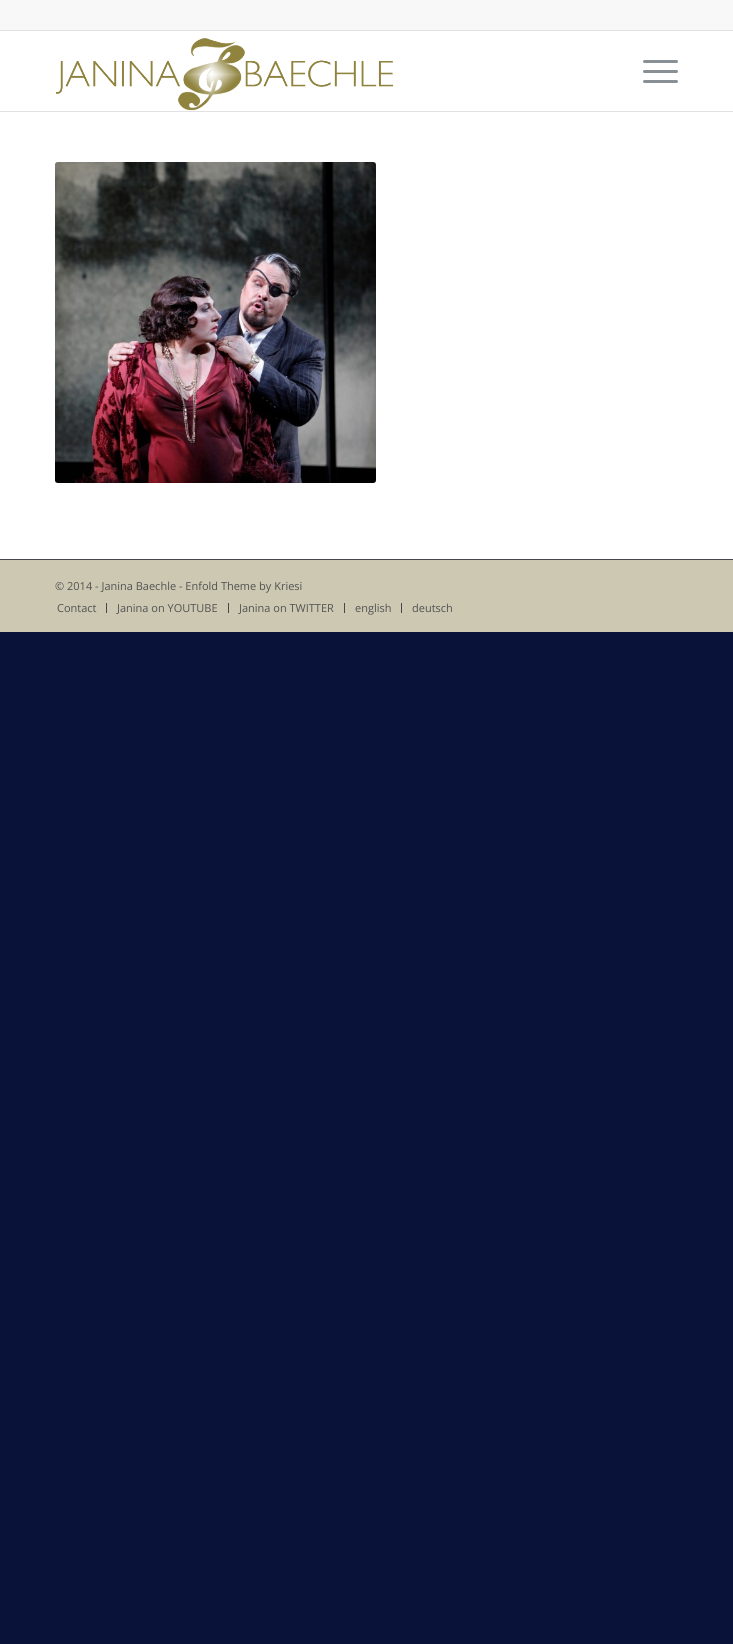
import math
import cairo

surface = cairo.ImageSurface(cairo.FORMAT_RGB24, 733, 1644)
ctx = cairo.Context(surface)
options = cairo.FontOptions()
options.set_hint_metrics(cairo.HINT_METRICS_OFF)
options.set_hint_style(cairo.HINT_STYLE_NONE)
ctx.set_font_options(options)
ctx.set_miter_limit(4)


def set_color(code):
    ctx.set_source_rgb(*(v / 255 for v in bytes.fromhex(code[-6:])))


def draw_text(x, y, s, family, size, color, bold=False, italic=False):
    ctx.select_font_face(family, cairo.FONT_SLANT_ITALIC if italic else cairo.FONT_SLANT_NORMAL, cairo.FONT_WEIGHT_BOLD if bold else cairo.FONT_WEIGHT_NORMAL)
    ctx.set_font_size(size)
    set_color(color)
    ctx.move_to(x, y)
    ctx.show_text(s)


def fill_rect(x, y, w, h, color):
    set_color(color)
    ctx.rectangle(x, y, w, h)
    ctx.fill()


def rounded_rect(x, y, w, h, r):
    ctx.new_sub_path()
    for i, (u, v) in enumerate([(x + w - r, y + h - r), (x + r, y + h - r), (x + r, y + r), (x + w - r, y + r)]):
        ctx.arc(u, v, r, i * math.pi / 2, (i + 1) * math.pi / 2)
    ctx.close_path()


def draw_image(path, x, y, w, h):
    ctx.save()
    ctx.set_source_surface(cairo.ImageSurface.create_from_png(path), x, y)
    ctx.rectangle(x, y, w, h)
    ctx.fill()
    ctx.restore()


set_color("#091238")
ctx.paint()
fill_rect(0, 0, 733, 30, "#f8f8f8")
fill_rect(0, 30, 733, 1, "#e1e1e1")
fill_rect(0, 31, 733, 80, "#ffffff")
fill_rect(0, 111, 733, 1, "#e1e1e1")
draw_image("assets/img1.png", 55, 38, 339, 73)
set_color("#889095")
rounded_rect(643, 70, 35, 3, 1.5)
ctx.fill()
rounded_rect(643, 60, 35, 3, 1.5)
ctx.fill()
rounded_rect(643, 80, 35, 3, 1.5)
ctx.fill()
fill_rect(0, 112, 733, 447, "#ffffff")
draw_image("assets/img2.png", 55, 162, 321, 321)
fill_rect(0, 560, 733, 72, "#ccc8b2")
fill_rect(0, 559, 733, 1, "#45494d")
draw_text(55, 590, "© 2014 - Janina Baechle - Enfold Theme by Kriesi", "Open Sans", 11, "#525252")
draw_text(57, 612, "Contact", "Open Sans", 11, "#525252")
fill_rect(106, 603, 1, 10, "#45494d")
draw_text(117, 612, "Janina on YOUTUBE", "Open Sans", 11, "#525252")
fill_rect(228, 603, 1, 10, "#45494d")
draw_text(239, 612, "Janina on TWITTER", "Open Sans", 11, "#525252")
fill_rect(344, 603, 1, 10, "#45494d")
draw_text(355, 612, "english", "Open Sans", 11, "#525252")
fill_rect(401, 603, 1, 10, "#45494d")
draw_text(412, 612, "deutsch", "Open Sans", 11, "#525252")
surface.write_to_png("output.png")
